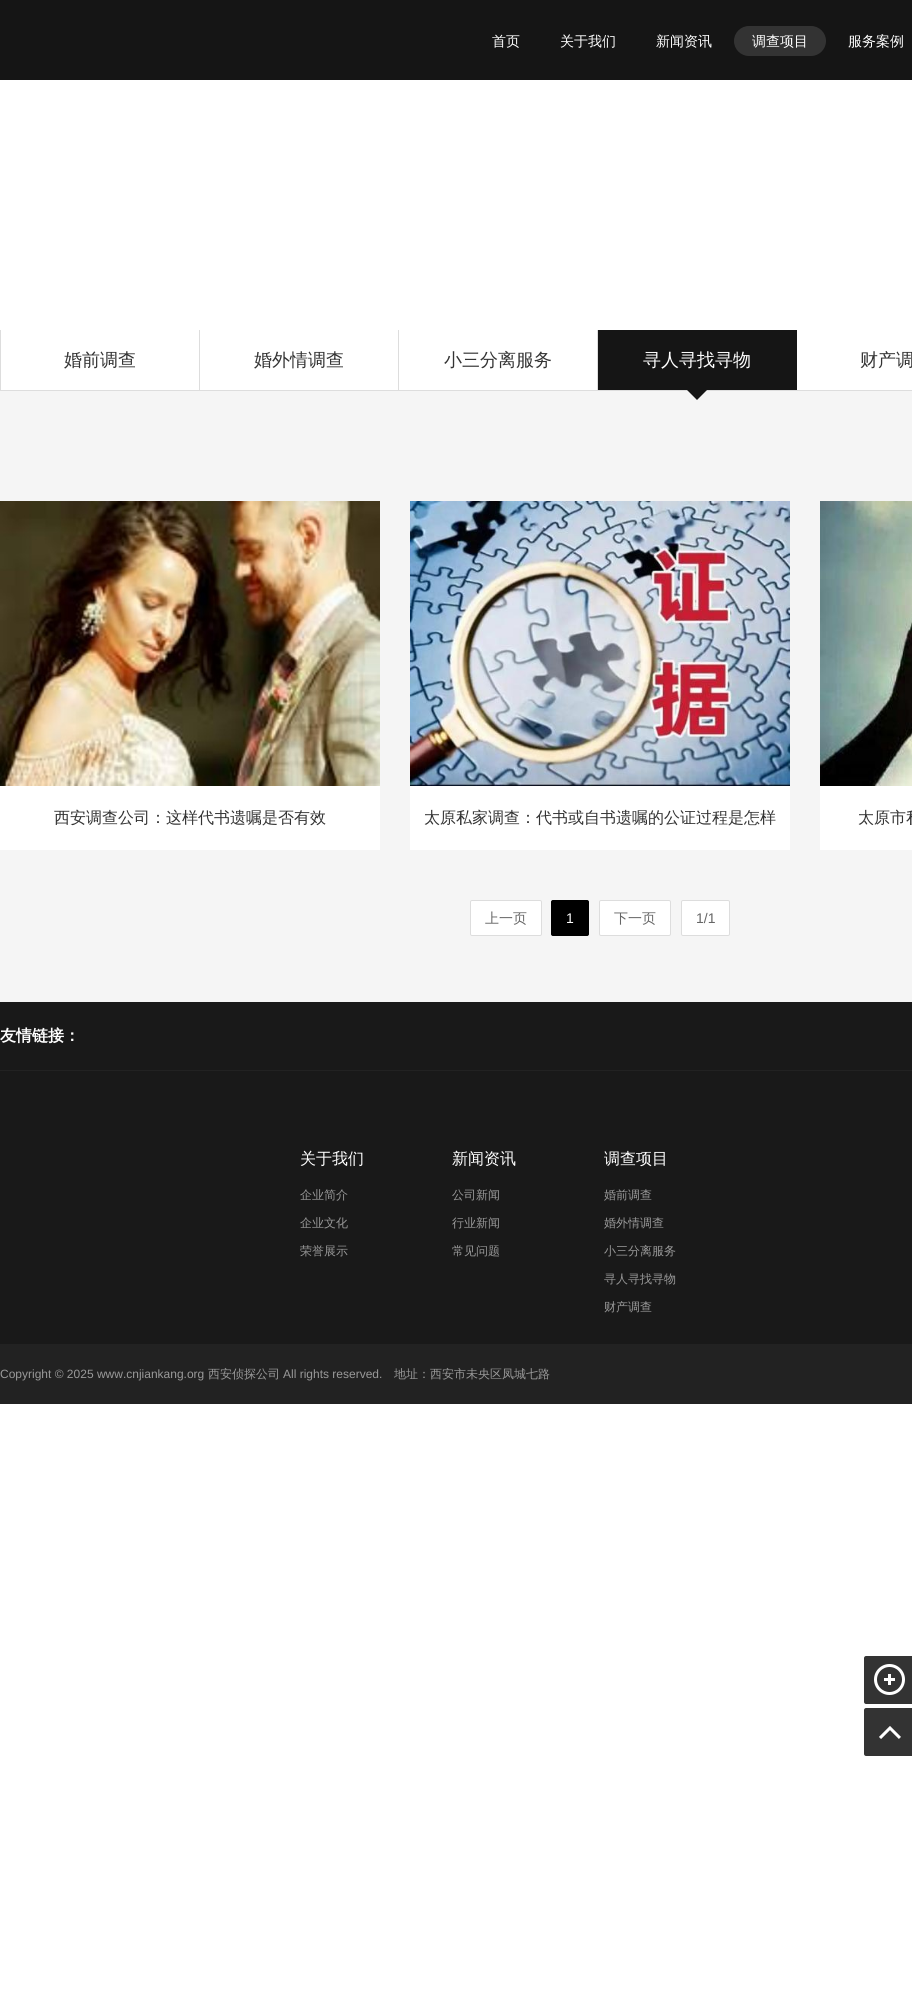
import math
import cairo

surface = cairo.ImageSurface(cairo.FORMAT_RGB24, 912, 1996)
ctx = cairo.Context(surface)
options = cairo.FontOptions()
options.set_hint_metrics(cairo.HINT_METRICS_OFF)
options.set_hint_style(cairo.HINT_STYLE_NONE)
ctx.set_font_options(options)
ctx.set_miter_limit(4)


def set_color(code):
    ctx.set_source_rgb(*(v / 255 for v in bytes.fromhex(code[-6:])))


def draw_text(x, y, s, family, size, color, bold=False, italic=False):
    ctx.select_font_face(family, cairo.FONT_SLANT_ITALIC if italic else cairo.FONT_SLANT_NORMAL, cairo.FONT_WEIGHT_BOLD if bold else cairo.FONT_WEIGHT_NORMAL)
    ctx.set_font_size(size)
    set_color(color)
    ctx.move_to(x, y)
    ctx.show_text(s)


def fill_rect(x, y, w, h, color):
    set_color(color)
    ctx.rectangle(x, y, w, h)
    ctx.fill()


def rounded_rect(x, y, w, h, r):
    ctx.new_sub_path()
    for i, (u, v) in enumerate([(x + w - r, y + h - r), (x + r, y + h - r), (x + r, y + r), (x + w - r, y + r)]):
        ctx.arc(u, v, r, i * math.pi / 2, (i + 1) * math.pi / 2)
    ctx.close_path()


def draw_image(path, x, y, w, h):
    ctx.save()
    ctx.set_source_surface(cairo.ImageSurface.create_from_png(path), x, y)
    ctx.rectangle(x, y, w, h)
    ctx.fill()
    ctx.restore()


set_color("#ffffff")
ctx.paint()
fill_rect(0, 0, 912, 80, "#151515")
draw_text(492, 46, "首页", "WenQuanYi Zen Hei Medium", 14, "#ffffff")
draw_text(560, 46, "关于我们", "WenQuanYi Zen Hei Medium", 14, "#ffffff")
draw_text(656, 46, "新闻资讯", "WenQuanYi Zen Hei Medium", 14, "#ffffff")
set_color("#333333")
rounded_rect(734, 26, 92, 30, 15)
ctx.fill()
draw_text(752, 46, "调查项目", "WenQuanYi Zen Hei Medium", 14, "#ffffff")
draw_text(848, 46, "服务案例", "WenQuanYi Zen Hei Medium", 14, "#ffffff")
fill_rect(0, 391, 912, 611, "#f5f5f5")
fill_rect(0, 390, 912, 1, "#dddddd")
fill_rect(0, 330, 1, 60, "#dddddd")
fill_rect(199, 330, 1, 60, "#dddddd")
draw_text(64, 366, "婚前调查", "WenQuanYi Zen Hei Medium", 18, "#333333")
fill_rect(398, 330, 1, 60, "#dddddd")
draw_text(254, 366, "婚外情调查", "WenQuanYi Zen Hei Medium", 18, "#333333")
fill_rect(597, 330, 1, 60, "#dddddd")
draw_text(444, 366, "小三分离服务", "WenQuanYi Zen Hei Medium", 18, "#333333")
fill_rect(598, 330, 199, 60, "#151515")
draw_text(643, 366, "寻人寻找寻物", "WenQuanYi Zen Hei Medium", 18, "#ffffff")
set_color("#151515")
ctx.new_path()
ctx.move_to(687, 390)
ctx.line_to(707, 390)
ctx.line_to(697, 400)
ctx.close_path()
ctx.fill()
draw_text(860, 366, "财产调", "WenQuanYi Zen Hei Medium", 18, "#333333")
fill_rect(0, 786, 380, 64, "#ffffff")
draw_image("assets/img1.png", 0, 501, 380, 285)
draw_text(54, 823, "西安调查公司：这样代书遗嘱是否有效", "WenQuanYi Zen Hei Medium", 16, "#333333")
fill_rect(410, 786, 380, 64, "#ffffff")
draw_image("assets/img2.png", 410, 501, 380, 285)
draw_text(424, 823, "太原私家调查：代书或自书遗嘱的公证过程是怎样", "WenQuanYi Zen Hei Medium", 16, "#333333")
fill_rect(820, 786, 92, 64, "#ffffff")
draw_image("assets/img3.png", 820, 501, 92, 285)
draw_text(858, 823, "太原市私", "WenQuanYi Zen Hei Medium", 16, "#333333")
set_color("#ffffff")
rounded_rect(470.5, 900.5, 71, 35, 1.5)
ctx.fill_preserve()
set_color("#dddddd")
ctx.set_line_width(1)
ctx.stroke()
draw_text(485, 923, "上一页", "WenQuanYi Zen Hei Medium", 14, "#666666")
set_color("#000000")
rounded_rect(551.5, 900.5, 37, 35, 1.5)
ctx.fill_preserve()
ctx.stroke()
draw_text(566, 923, "1", "Liberation Sans", 14, "#ffffff")
rounded_rect(599.5, 900.5, 71, 35, 1.5)
ctx.fill_preserve()
set_color("#dddddd")
ctx.stroke()
draw_text(614, 923, "下一页", "WenQuanYi Zen Hei Medium", 14, "#666666")
set_color("#ffffff")
rounded_rect(681.5, 900.5, 48, 35, 1.5)
ctx.fill_preserve()
set_color("#dddddd")
ctx.stroke()
draw_text(696, 923, "1/1", "Liberation Sans", 14, "#666666")
fill_rect(0, 1002, 912, 342, "#191919")
fill_rect(0, 1070, 912, 1, "#222222")
draw_text(0, 1041, "友情链接：", "WenQuanYi Zen Hei", 16, "#ffffff", bold=True)
draw_text(300, 1164, "关于我们", "WenQuanYi Zen Hei Medium", 16, "#ffffff")
draw_text(300, 1199, "企业简介", "WenQuanYi Zen Hei Medium", 12, "#999999")
draw_text(300, 1227, "企业文化", "WenQuanYi Zen Hei Medium", 12, "#999999")
draw_text(300, 1255, "荣誉展示", "WenQuanYi Zen Hei Medium", 12, "#999999")
draw_text(452, 1164, "新闻资讯", "WenQuanYi Zen Hei Medium", 16, "#ffffff")
draw_text(452, 1199, "公司新闻", "WenQuanYi Zen Hei Medium", 12, "#999999")
draw_text(452, 1227, "行业新闻", "WenQuanYi Zen Hei Medium", 12, "#999999")
draw_text(452, 1255, "常见问题", "WenQuanYi Zen Hei Medium", 12, "#999999")
draw_text(604, 1164, "调查项目", "WenQuanYi Zen Hei Medium", 16, "#ffffff")
draw_text(604, 1199, "婚前调查", "WenQuanYi Zen Hei Medium", 12, "#999999")
draw_text(604, 1227, "婚外情调查", "WenQuanYi Zen Hei Medium", 12, "#999999")
draw_text(604, 1255, "小三分离服务", "WenQuanYi Zen Hei Medium", 12, "#999999")
draw_text(604, 1283, "寻人寻找寻物", "WenQuanYi Zen Hei Medium", 12, "#999999")
draw_text(604, 1311, "财产调查", "WenQuanYi Zen Hei Medium", 12, "#999999")
fill_rect(0, 1344, 912, 60, "#222222")
draw_text(0, 1378, "Copyright © 2025 www.cnjiankang.org", "Liberation Sans", 12, "#999999")
draw_text(208, 1378, "西安侦探公司", "WenQuanYi Zen Hei Medium", 12, "#999999")
draw_text(283, 1378, "All rights reserved.", "Liberation Sans", 12, "#999999")
draw_text(394, 1378, "地址：西安市未央区凤城七路", "WenQuanYi Zen Hei Medium", 12, "#999999")
set_color("#333333")
ctx.new_path()
ctx.move_to(866, 1656)
ctx.line_to(912, 1656)
ctx.line_to(912, 1704)
ctx.line_to(866, 1704)
ctx.curve_to(865, 1704, 864, 1703, 864, 1702)
ctx.line_to(864, 1658)
ctx.curve_to(864, 1657, 865, 1656, 866, 1656)
ctx.close_path()
ctx.fill()
draw_image("assets/img4.png", 874, 1664, 31, 31)
ctx.new_path()
ctx.move_to(866, 1708)
ctx.line_to(912, 1708)
ctx.line_to(912, 1756)
ctx.line_to(866, 1756)
ctx.curve_to(865, 1756, 864, 1755, 864, 1754)
ctx.line_to(864, 1710)
ctx.curve_to(864, 1709, 865, 1708, 866, 1708)
ctx.close_path()
ctx.fill()
draw_image("assets/img5.png", 879, 1726, 22, 13)
surface.write_to_png("output.png")
